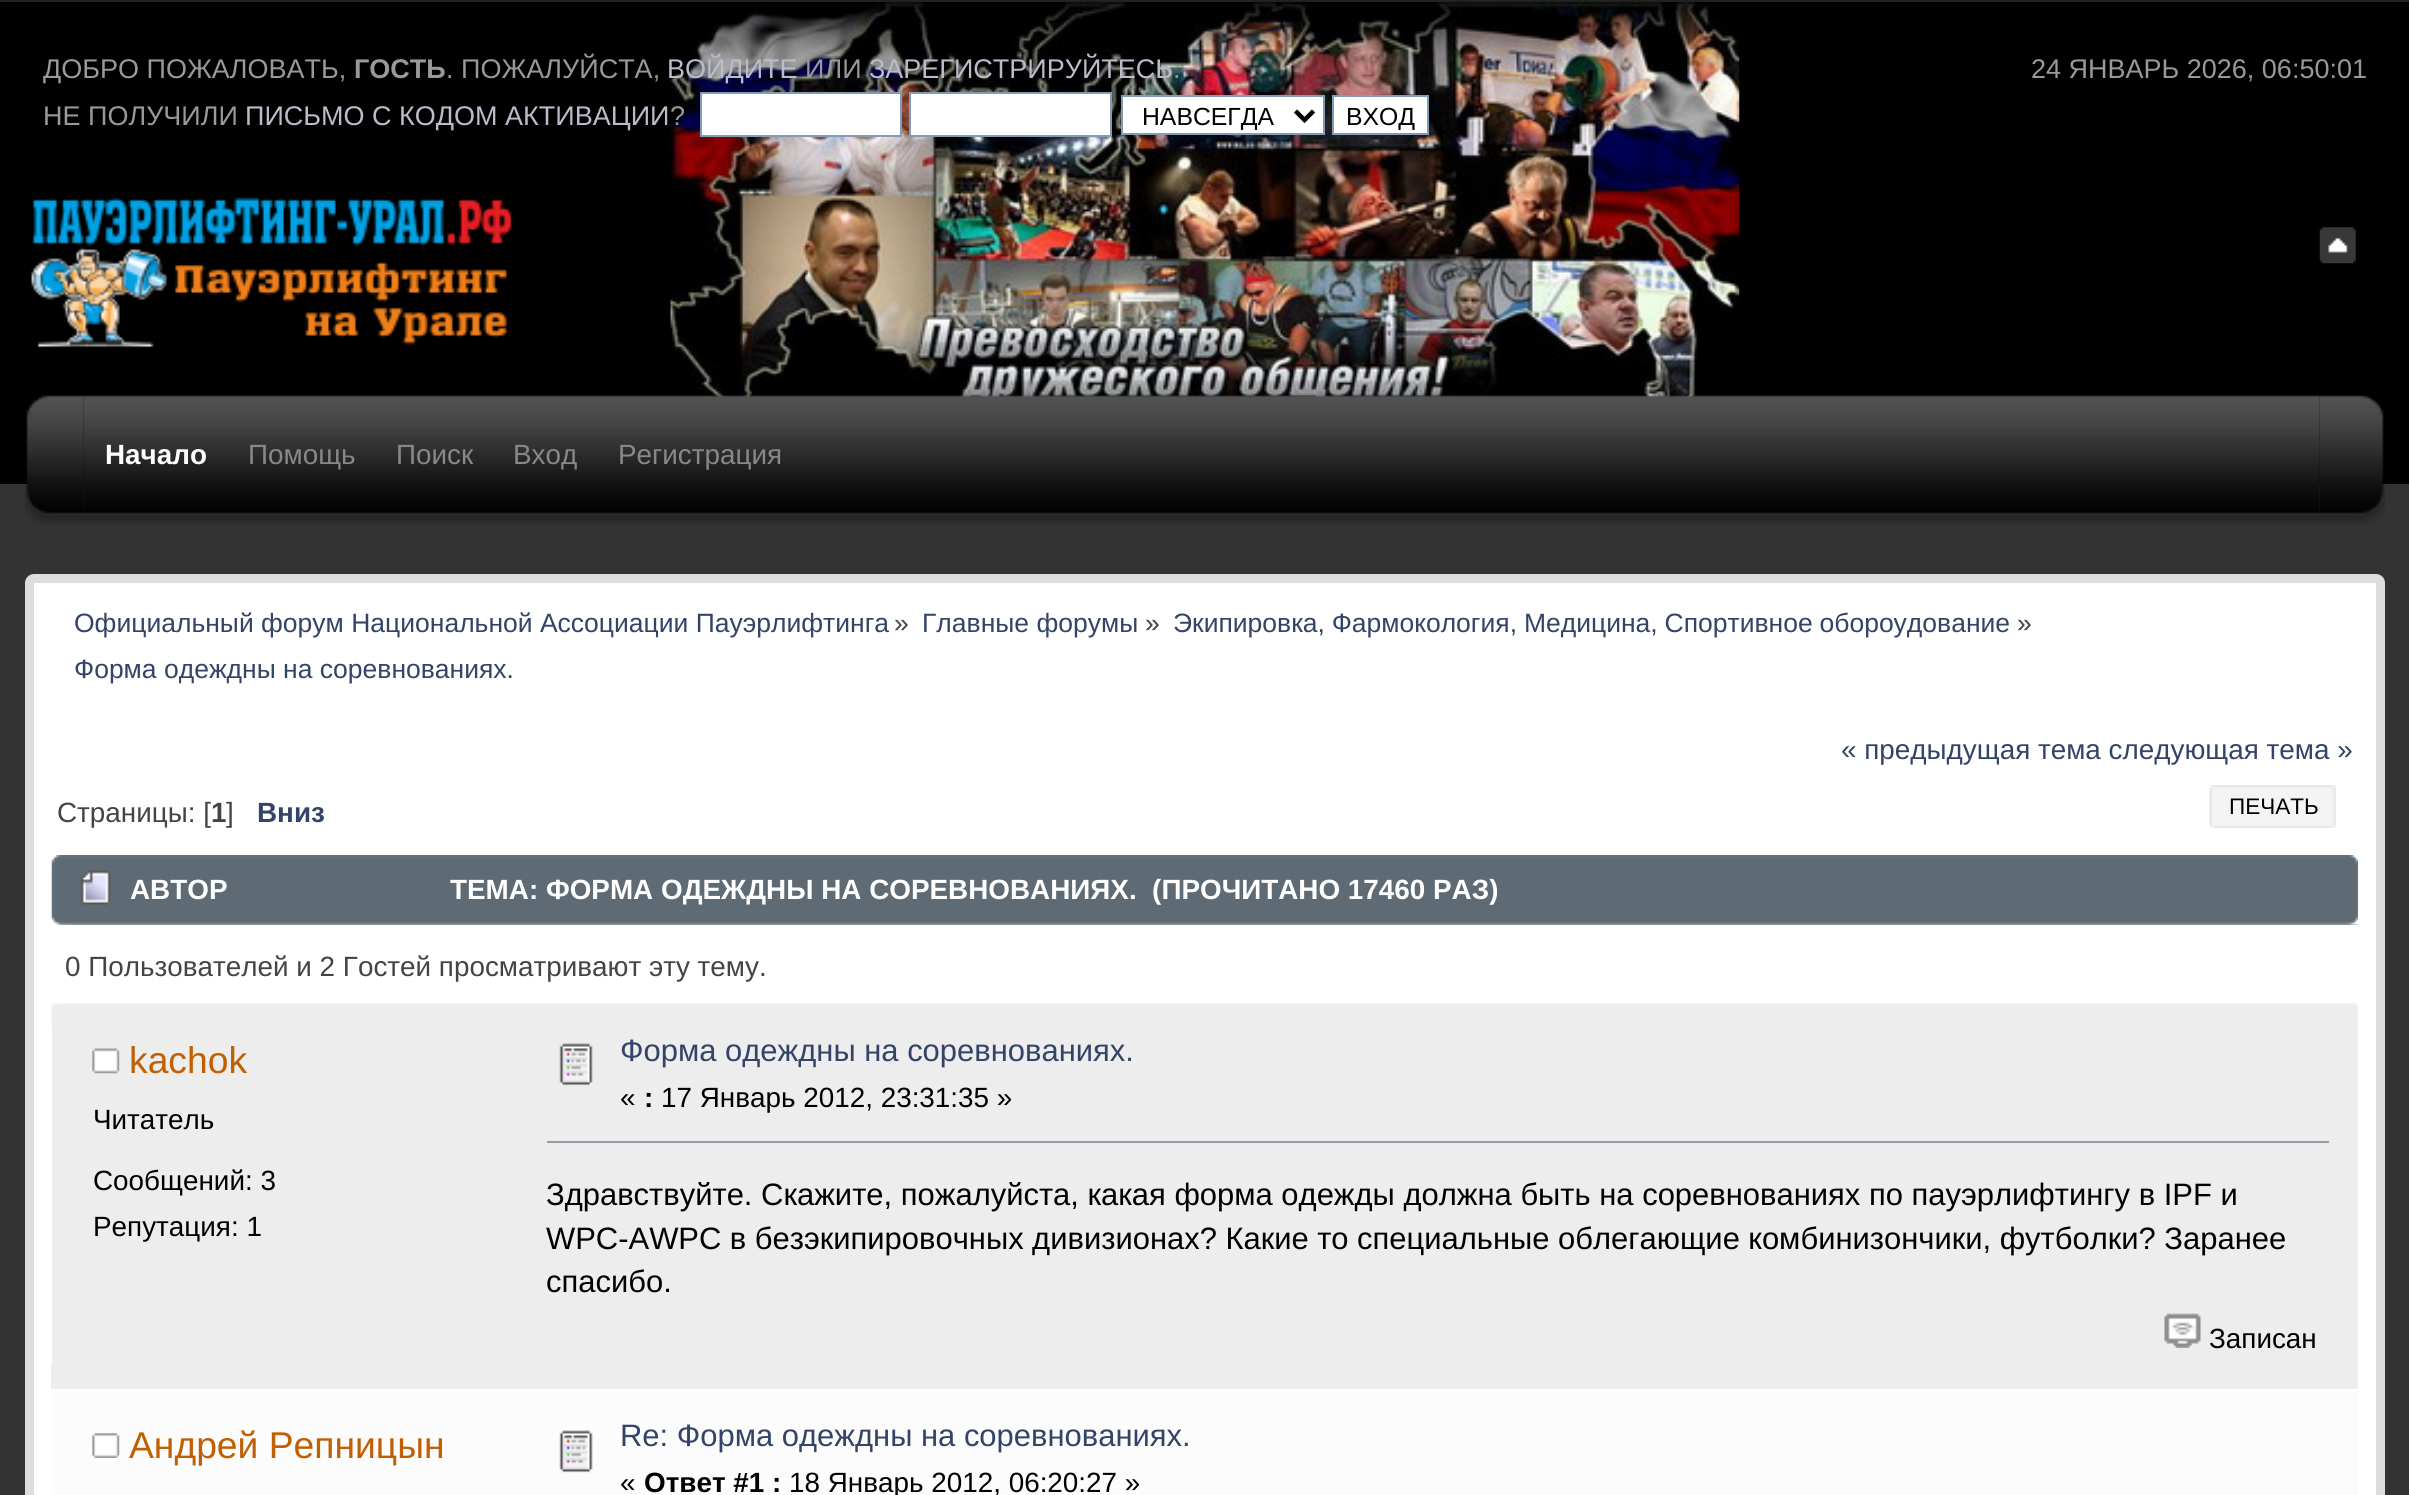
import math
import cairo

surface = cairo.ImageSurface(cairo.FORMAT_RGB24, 2409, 1495)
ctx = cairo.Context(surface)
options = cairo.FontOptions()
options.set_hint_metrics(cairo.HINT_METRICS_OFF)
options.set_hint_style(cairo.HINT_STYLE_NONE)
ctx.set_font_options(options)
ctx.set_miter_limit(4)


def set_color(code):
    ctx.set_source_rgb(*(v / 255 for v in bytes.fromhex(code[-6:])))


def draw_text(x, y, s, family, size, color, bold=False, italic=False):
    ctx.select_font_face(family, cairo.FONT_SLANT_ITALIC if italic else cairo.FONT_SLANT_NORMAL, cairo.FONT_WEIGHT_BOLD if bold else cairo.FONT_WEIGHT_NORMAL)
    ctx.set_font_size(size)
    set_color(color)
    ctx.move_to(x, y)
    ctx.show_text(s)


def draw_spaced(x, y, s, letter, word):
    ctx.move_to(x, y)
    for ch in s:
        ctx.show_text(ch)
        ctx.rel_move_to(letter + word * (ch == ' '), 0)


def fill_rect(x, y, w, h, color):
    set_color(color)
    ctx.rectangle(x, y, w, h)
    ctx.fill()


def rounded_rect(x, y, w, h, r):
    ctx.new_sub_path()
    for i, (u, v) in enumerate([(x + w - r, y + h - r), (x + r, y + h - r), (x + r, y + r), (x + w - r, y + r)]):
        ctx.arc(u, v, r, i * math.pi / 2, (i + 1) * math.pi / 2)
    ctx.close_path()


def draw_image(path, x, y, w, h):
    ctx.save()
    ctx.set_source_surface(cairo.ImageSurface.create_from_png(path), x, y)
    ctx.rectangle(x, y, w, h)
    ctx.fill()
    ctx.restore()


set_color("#000000")
ctx.paint()
draw_image("assets/img1.png", 670, 2, 1070, 395)
fill_rect(0, 0, 2409, 2, "#222222")
draw_text(43, 78, "ДОБРО ПОЖАЛОВАТЬ,", "Liberation Sans", 27, "#999999")
draw_text(354, 78, "ГОСТЬ", "Liberation Sans", 27, "#999999", bold=True)
draw_text(446, 78, ". ПОЖАЛУЙСТА,", "Liberation Sans", 27, "#999999")
draw_text(667, 78, "ВОЙДИТЕ", "Liberation Sans", 27, "#bbbbcc")
draw_text(805, 78, "ИЛИ", "Liberation Sans", 27, "#999999")
draw_text(869, 78, "ЗАРЕГИСТРИРУЙТЕСЬ", "Liberation Sans", 27, "#bbbbcc")
draw_text(1173, 78, ".", "Liberation Sans", 27, "#999999")
draw_text(43, 125, "НЕ ПОЛУЧИЛИ", "Liberation Sans", 27, "#999999")
draw_text(245, 125, "ПИСЬМО С КОДОМ АКТИВАЦИИ", "Liberation Sans", 27, "#bbbbcc")
draw_text(670, 125, "?", "Liberation Sans", 27, "#999999")
set_color("#ffffff")
ctx.rectangle(701, 93, 200, 43)
ctx.fill_preserve()
set_color("#7f9db9")
ctx.stroke()
set_color("#ffffff")
ctx.rectangle(910, 93, 201, 43)
ctx.fill_preserve()
set_color("#7f9db9")
ctx.stroke()
set_color("#ffffff")
ctx.rectangle(1122, 96, 202, 38)
ctx.fill_preserve()
set_color("#7f9db9")
ctx.stroke()
ctx.new_path()
ctx.move_to(1295.5, 111)
ctx.line_to(1304.5, 120)
ctx.line_to(1313.5, 111)
set_color("#000000")
ctx.set_line_width(4.5)
ctx.stroke()
draw_text(1142, 125, "НАВСЕГДА", "Liberation Sans", 24.75, "#000000")
set_color("#ffffff")
ctx.rectangle(1333, 96, 95, 38)
ctx.fill_preserve()
set_color("#7f9db9")
ctx.set_line_width(2)
ctx.stroke()
draw_text(1346, 125, "ВХОД", "Liberation Sans", 24.75, "#000000")
draw_text(2031, 78, "24 ЯНВАРЬ 2026, 06:50:01", "Liberation Sans", 27, "#999999")
draw_image("assets/img2.png", 31, 197, 483, 151)
draw_image("assets/img3.png", 2319, 227, 37, 37)
fill_rect(0, 484, 2409, 1011, "#333333")
draw_image("assets/img4.png", 2319, 395, 66, 130)
draw_image("assets/img5.png", 25, 395, 59, 130)
draw_image("assets/img6.png", 83, 391, 2237, 134)
draw_text(105, 464, "Начало", "Liberation Sans", 27.85, "#ffffff", bold=True)
draw_text(248, 464, "Помощь", "Liberation Sans", 27.85, "#888888")
draw_text(396, 464, "Поиск", "Liberation Sans", 27.85, "#888888")
draw_text(513, 464, "Вход", "Liberation Sans", 27.85, "#888888")
draw_text(618, 464, "Регистрация", "Liberation Sans", 27.85, "#888888")
set_color("#ffffff")
rounded_rect(29.5, 578.5, 2351, 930, 4.5)
ctx.fill_preserve()
set_color("#dddddd")
ctx.set_line_width(9)
ctx.stroke()
draw_text(74, 632, "Официальный форум Национальной Ассоциации Пауэрлифтинга", "Liberation Sans", 26.5, "#334466")
draw_text(894, 632, "»", "Liberation Sans", 26.5, "#444444")
draw_text(922, 632, "Главные форумы", "Liberation Sans", 26.5, "#334466")
draw_text(1145, 632, "»", "Liberation Sans", 26.5, "#444444")
set_color("#334466")
draw_spaced(1173, 632, "Экипировка, Фармокология, Медицина, Спортивное обороудование", 0, -0.5)
draw_text(2017, 632, "»", "Liberation Sans", 26.5, "#444444")
draw_text(74, 678, "Форма одеждны на соревнованиях.", "Liberation Sans", 26.5, "#334466")
draw_text(1841, 759, "« предыдущая тема следующая тема »", "Liberation Sans", 27.85, "#334466")
draw_text(57, 822, "Страницы: [", "Liberation Sans", 27.85, "#444444")
draw_text(211, 822, "1", "Liberation Sans", 27.85, "#444444", bold=True)
draw_text(226, 822, "]", "Liberation Sans", 27.85, "#444444")
draw_text(257, 822, "Вниз", "Liberation Sans", 27.85, "#334466", bold=True)
fill_rect(2210, 785, 126, 43, "#e8e8e8")
draw_image("assets/img7.png", 2209, 785, 127, 43)
draw_image("assets/img8.png", 2331, 785, 5, 43)
draw_text(2229, 814, "ПЕЧАТЬ", "Liberation Sans", 22.5, "#000000")
draw_image("assets/img9.png", 51, 855, 2307, 70)
draw_image("assets/img10.png", 72, 855, 2286, 70)
draw_image("assets/img11.png", 80, 870, 31, 35)
draw_text(130, 899, "АВТОР", "Liberation Sans", 27.85, "#ffffff", bold=True)
draw_text(450, 899, "ТЕМА: ФОРМА ОДЕЖДНЫ НА СОРЕВНОВАНИЯХ.  (ПРОЧИТАНО 17460 РАЗ)", "Liberation Sans", 27.85, "#ffffff", bold=True)
draw_text(65, 976, "0 Пользователей и 2 Гостей просматривают эту тему.", "Liberation Sans", 27.85, "#444444")
fill_rect(52, 1028, 2306, 336, "#ededed")
draw_image("assets/img12.png", 51, 1003, 2307, 25)
draw_image("assets/img13.png", 97, 1003, 2261, 3)
draw_image("assets/img14.png", 92, 1048, 28, 26)
draw_text(129, 1073, "kachok", "Liberation Sans", 37.25, "#c06002")
draw_text(93, 1129, "Читатель", "Liberation Sans", 27.85, "#000000")
draw_text(93, 1190, "Сообщений: 3", "Liberation Sans", 27.85, "#000000")
draw_text(93, 1236, "Репутация: 1", "Liberation Sans", 27.85, "#000000")
draw_image("assets/img15.png", 559, 1043, 34, 43)
draw_text(620, 1061, "Форма одеждны на соревнованиях.", "Liberation Sans", 30.95, "#334466")
draw_text(620, 1107, "«", "Liberation Sans", 27.85, "#000000")
draw_text(644, 1107, ":", "Liberation Sans", 27.85, "#000000", bold=True)
draw_text(661, 1107, "17 Январь 2012, 23:31:35 »", "Liberation Sans", 27.85, "#000000")
fill_rect(547, 1141, 1782, 2, "#9999aa")
draw_text(546, 1205, "Здравствуйте. Скажите, пожалуйста, какая форма одежды должна быть на соревнованиях по пауэрлифтингу в IPF и", "Liberation Sans", 30.95, "#000000")
draw_spaced(546, 1249, "WPC-AWPC в безэкипировочных дивизионах? Какие то специальные облегающие комбинизончики, футболки? Заранее", 0, -0.1)
draw_text(546, 1292, "спасибо.", "Liberation Sans", 30.95, "#000000")
draw_image("assets/img16.png", 2164, 1313, 37, 35)
draw_text(2209, 1348, "Записан", "Liberation Sans", 27.85, "#000000")
fill_rect(51, 1364, 2307, 25, "#ededed")
fill_rect(52, 1391, 2306, 104, "#fcfcfc")
draw_image("assets/img17.png", 92, 1433, 28, 25)
draw_text(129, 1458, "Андрей Репницын", "Liberation Sans", 37.25, "#c06002")
draw_image("assets/img18.png", 559, 1430, 34, 43)
draw_text(620, 1446, "Re: Форма одеждны на соревнованиях.", "Liberation Sans", 30.95, "#334466")
draw_text(620, 1492, "«", "Liberation Sans", 27.85, "#000000")
draw_text(644, 1492, "Ответ #1 :", "Liberation Sans", 27.85, "#000000", bold=True)
draw_text(789, 1492, "18 Январь 2012, 06:20:27 »", "Liberation Sans", 27.85, "#000000")
surface.write_to_png("output.png")
